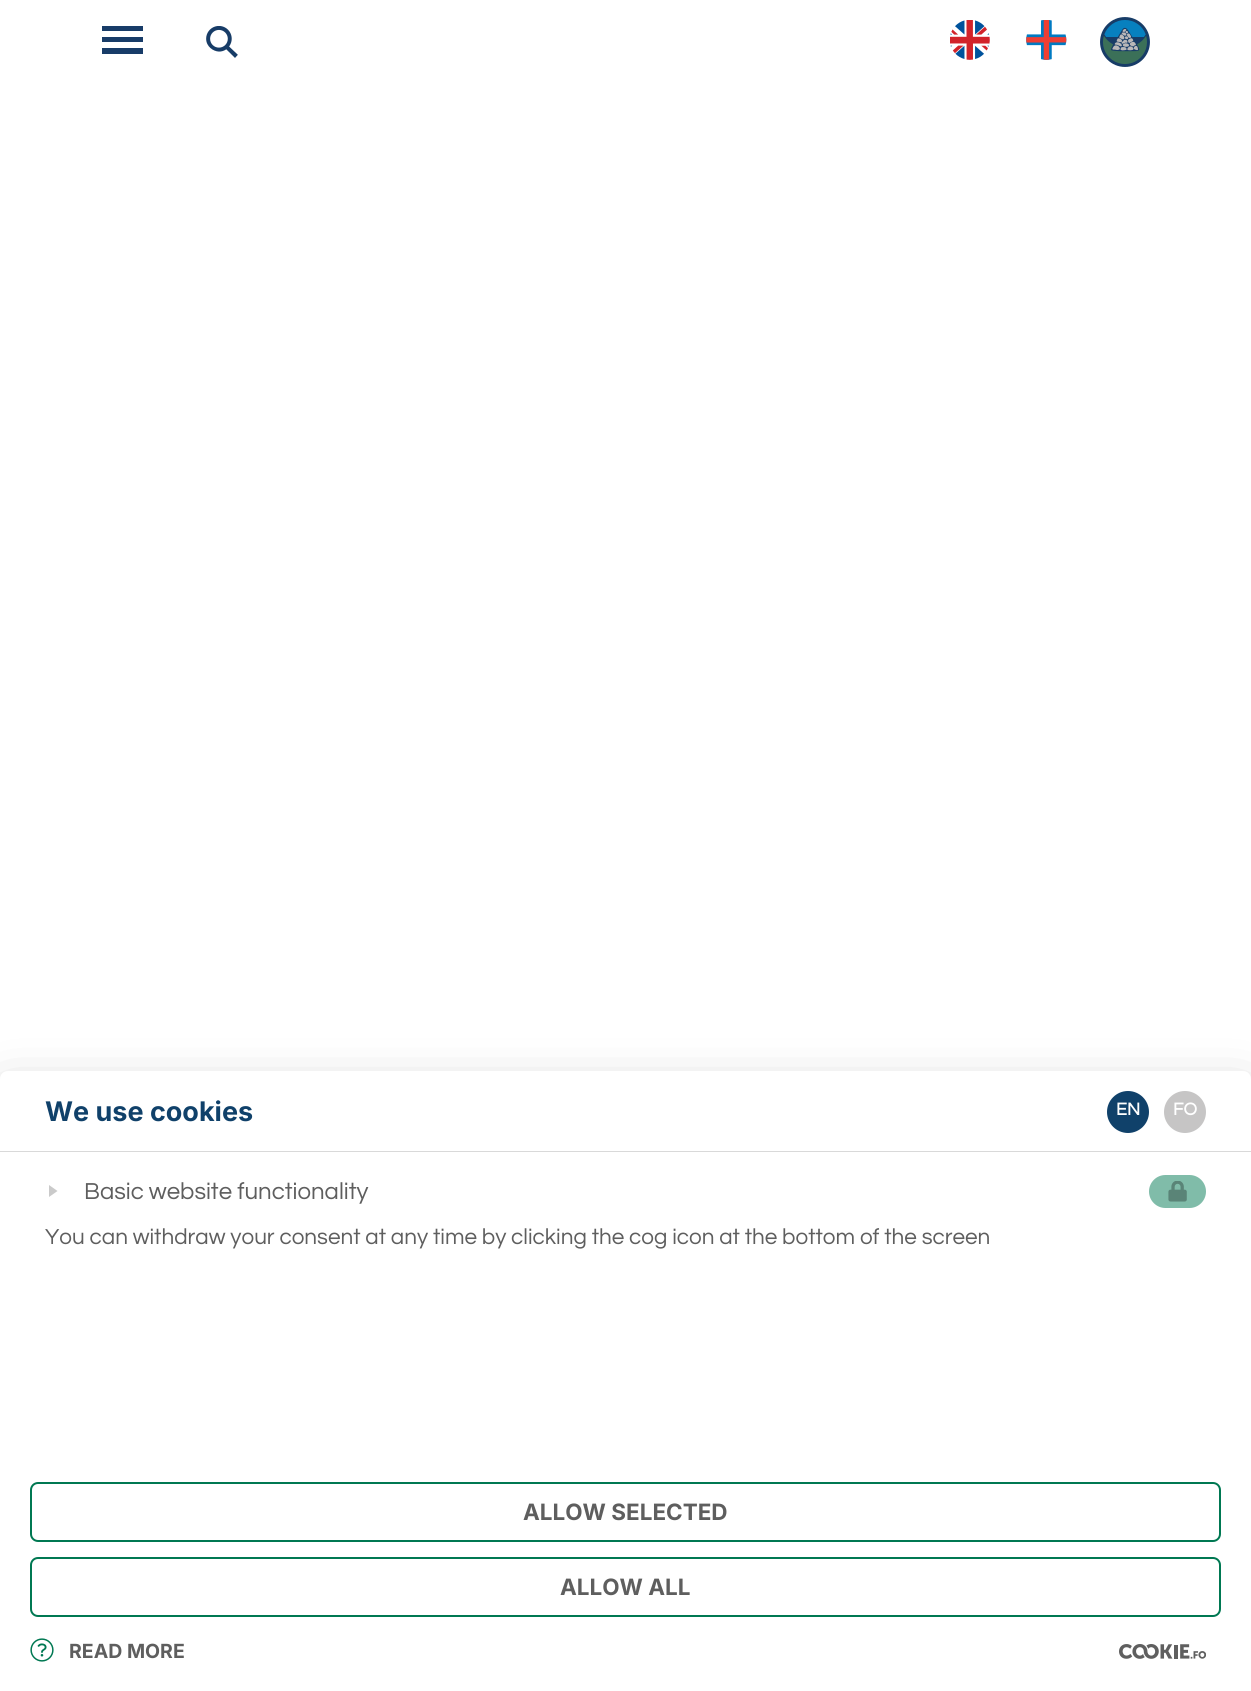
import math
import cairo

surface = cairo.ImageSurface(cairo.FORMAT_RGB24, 1251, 1691)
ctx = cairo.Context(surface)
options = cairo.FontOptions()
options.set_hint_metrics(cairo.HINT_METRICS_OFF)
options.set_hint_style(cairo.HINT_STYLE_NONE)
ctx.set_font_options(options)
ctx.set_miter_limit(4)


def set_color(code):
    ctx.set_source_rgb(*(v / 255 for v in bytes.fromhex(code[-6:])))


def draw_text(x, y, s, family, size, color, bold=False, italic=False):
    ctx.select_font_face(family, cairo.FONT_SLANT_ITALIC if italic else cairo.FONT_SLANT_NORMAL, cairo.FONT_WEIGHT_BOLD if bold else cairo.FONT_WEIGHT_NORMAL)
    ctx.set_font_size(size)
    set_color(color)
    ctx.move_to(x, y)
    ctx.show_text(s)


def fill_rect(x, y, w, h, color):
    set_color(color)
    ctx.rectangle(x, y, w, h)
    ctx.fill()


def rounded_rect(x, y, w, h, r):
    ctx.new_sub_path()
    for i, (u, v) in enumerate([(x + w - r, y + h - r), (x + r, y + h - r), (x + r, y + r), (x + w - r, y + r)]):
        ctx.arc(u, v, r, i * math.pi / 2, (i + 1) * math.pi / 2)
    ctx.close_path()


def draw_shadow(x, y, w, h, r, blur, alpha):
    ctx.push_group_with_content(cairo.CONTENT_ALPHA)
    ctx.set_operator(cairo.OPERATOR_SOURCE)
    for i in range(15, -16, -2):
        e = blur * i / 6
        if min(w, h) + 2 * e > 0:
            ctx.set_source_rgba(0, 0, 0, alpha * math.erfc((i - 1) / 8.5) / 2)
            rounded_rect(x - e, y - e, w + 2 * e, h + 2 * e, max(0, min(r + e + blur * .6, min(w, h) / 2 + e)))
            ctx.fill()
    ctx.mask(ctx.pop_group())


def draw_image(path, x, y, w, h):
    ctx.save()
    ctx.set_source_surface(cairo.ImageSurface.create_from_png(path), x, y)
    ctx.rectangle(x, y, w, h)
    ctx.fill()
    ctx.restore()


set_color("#ffffff")
ctx.paint()
fill_rect(102, 26, 41, 5, "#183c68")
fill_rect(102, 37, 41, 5, "#183c68")
fill_rect(102, 48, 41, 6, "#183c68")
draw_image("assets/img1.png", 206, 26, 32, 32)
draw_image("assets/img2.png", 950, 20, 40, 40)
draw_image("assets/img3.png", 1026, 20, 41, 40)
draw_image("assets/img4.png", 1100, 17, 50, 50)
set_color("#000000")
draw_shadow(0, 1100, 1251, 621, 8, 28.5, 0.3)
set_color("#ffffff")
ctx.new_path()
ctx.move_to(8, 1071)
ctx.line_to(1243, 1071)
ctx.curve_to(1247.5, 1071, 1251, 1074.5, 1251, 1079)
ctx.line_to(1251, 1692)
ctx.line_to(0, 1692)
ctx.line_to(0, 1079)
ctx.curve_to(0, 1074.5, 3.5, 1071, 8, 1071)
ctx.close_path()
ctx.fill()
fill_rect(0, 1151, 1251, 1, "#d9d9d9")
draw_text(45, 1121, "We use cookies", "Inter", 27, "#10416a", bold=True)
ctx.new_path()
ctx.arc(1128, 1112, 21, 0, 2 * math.pi)
ctx.fill()
draw_text(1116, 1115, "EN", "Questrial", 18, "#ffffff", bold=True)
set_color("#c6c5c5")
ctx.new_path()
ctx.arc(1185, 1112, 21, 0, 2 * math.pi)
ctx.fill()
draw_text(1173, 1115, "FO", "Questrial", 18, "#ffffff", bold=True)
set_color("#cacaca")
ctx.new_path()
ctx.move_to(49, 1185)
ctx.line_to(57.5, 1191)
ctx.line_to(49, 1197)
ctx.close_path()
ctx.fill()
draw_text(84, 1199, "Basic website functionality", "Questrial", 24, "#5e5e5e")
set_color("#80bca9")
rounded_rect(1149, 1175, 57, 33, 16.5)
ctx.fill()
draw_image("assets/img5.png", 1168, 1181, 19, 21)
draw_text(45, 1244, "You can withdraw your consent at any time by clicking the cog icon at the bottom of the screen", "Questrial", 22.5, "#5e5e5e")
rounded_rect(31, 1483, 1189, 58, 7)
set_color("#007852")
ctx.stroke()
draw_text(523, 1520, "ALLOW SELECTED", "Inter", 22.5, "#5e5e5e", bold=True)
rounded_rect(31, 1558, 1189, 58, 7)
set_color("#007852")
ctx.stroke()
draw_text(560, 1595, "ALLOW ALL", "Inter", 22.5, "#5e5e5e", bold=True)
draw_image("assets/img6.png", 30, 1638, 24, 24)
draw_text(69, 1658, "READ MORE", "Inter", 19.5, "#5e5e5e", bold=True)
draw_image("assets/img7.png", 1119, 1644, 87, 15)
surface.write_to_png("output.png")
